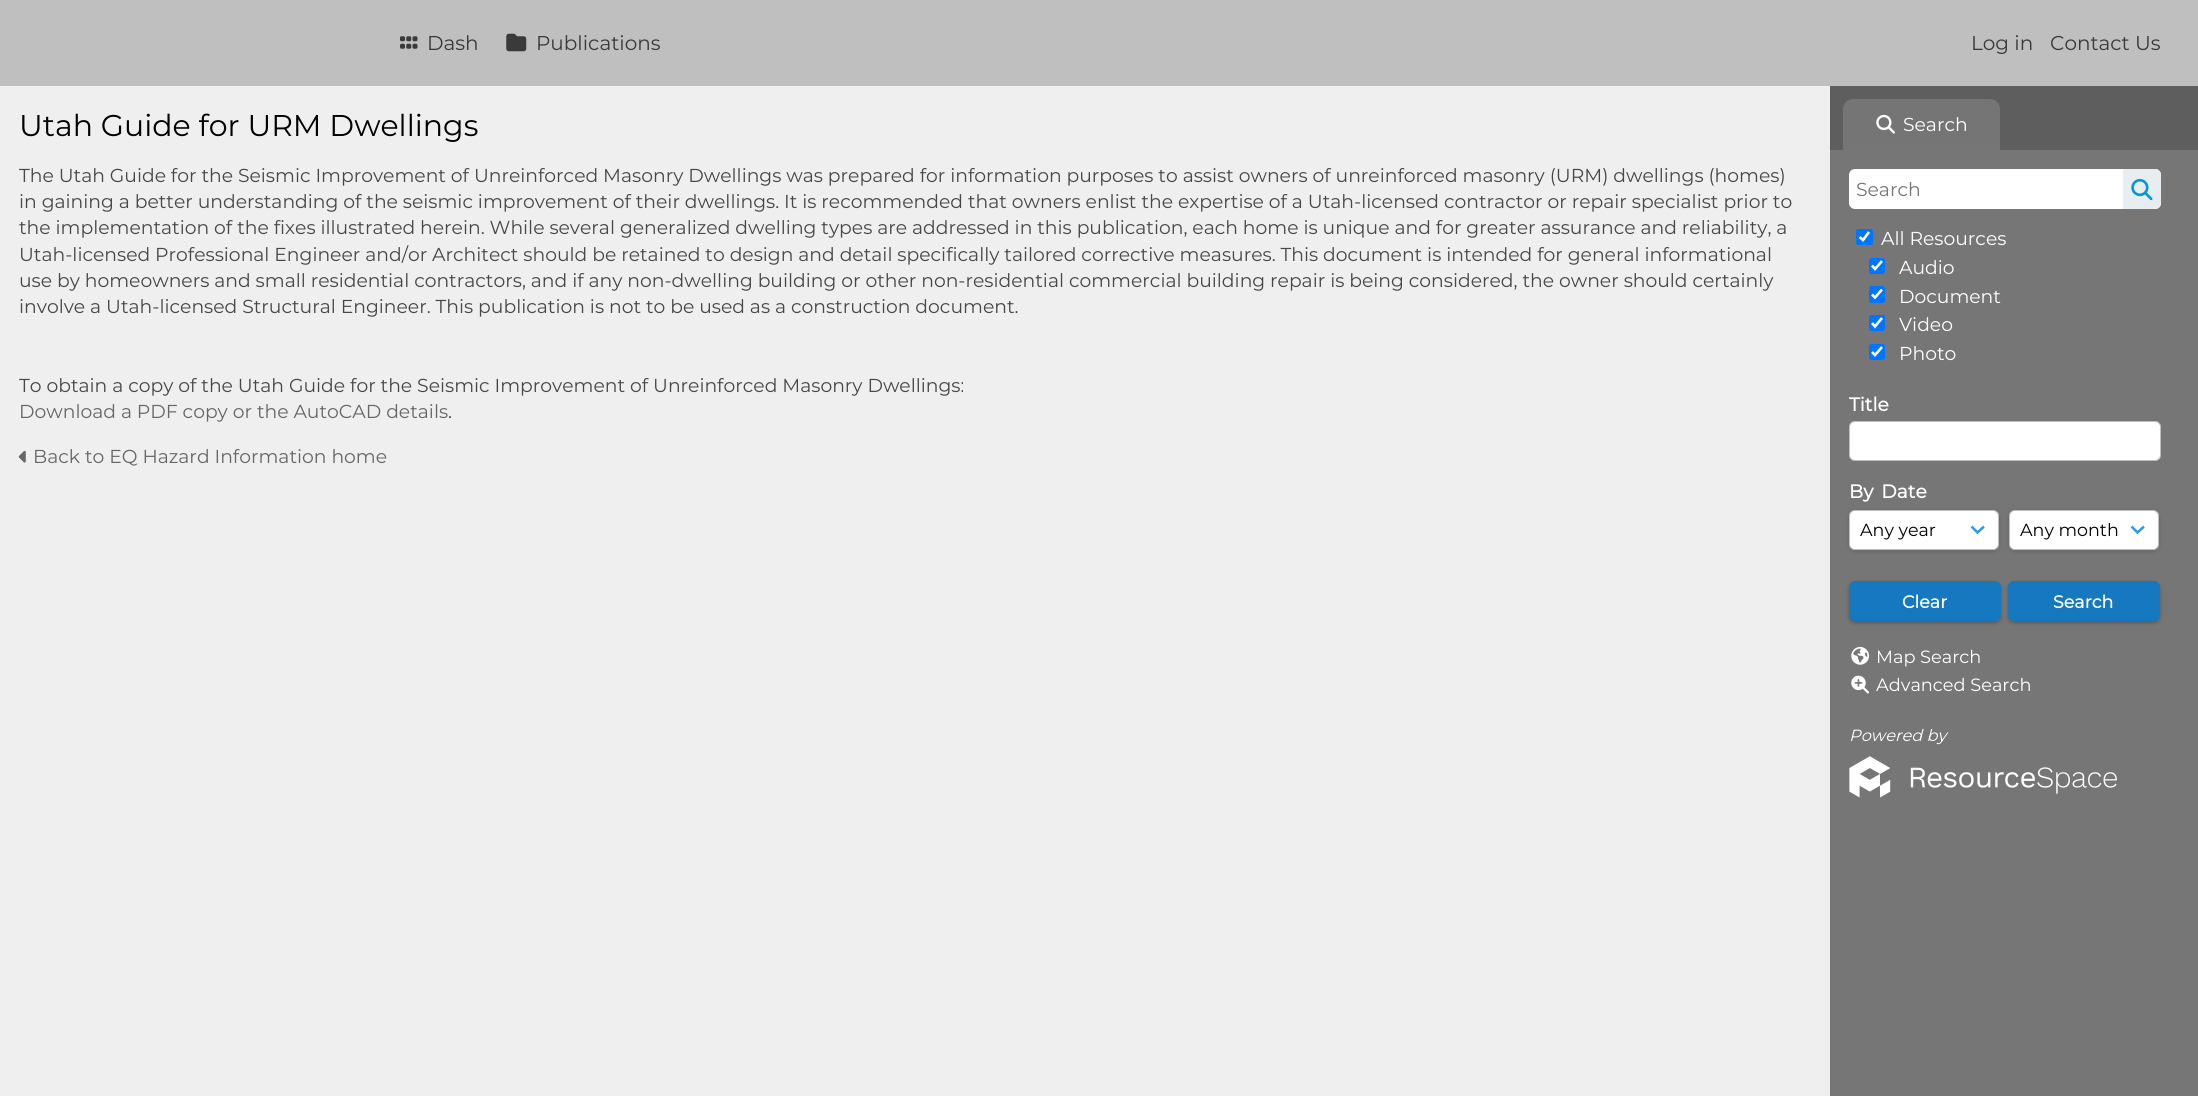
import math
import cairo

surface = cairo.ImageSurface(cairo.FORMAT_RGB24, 2198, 1096)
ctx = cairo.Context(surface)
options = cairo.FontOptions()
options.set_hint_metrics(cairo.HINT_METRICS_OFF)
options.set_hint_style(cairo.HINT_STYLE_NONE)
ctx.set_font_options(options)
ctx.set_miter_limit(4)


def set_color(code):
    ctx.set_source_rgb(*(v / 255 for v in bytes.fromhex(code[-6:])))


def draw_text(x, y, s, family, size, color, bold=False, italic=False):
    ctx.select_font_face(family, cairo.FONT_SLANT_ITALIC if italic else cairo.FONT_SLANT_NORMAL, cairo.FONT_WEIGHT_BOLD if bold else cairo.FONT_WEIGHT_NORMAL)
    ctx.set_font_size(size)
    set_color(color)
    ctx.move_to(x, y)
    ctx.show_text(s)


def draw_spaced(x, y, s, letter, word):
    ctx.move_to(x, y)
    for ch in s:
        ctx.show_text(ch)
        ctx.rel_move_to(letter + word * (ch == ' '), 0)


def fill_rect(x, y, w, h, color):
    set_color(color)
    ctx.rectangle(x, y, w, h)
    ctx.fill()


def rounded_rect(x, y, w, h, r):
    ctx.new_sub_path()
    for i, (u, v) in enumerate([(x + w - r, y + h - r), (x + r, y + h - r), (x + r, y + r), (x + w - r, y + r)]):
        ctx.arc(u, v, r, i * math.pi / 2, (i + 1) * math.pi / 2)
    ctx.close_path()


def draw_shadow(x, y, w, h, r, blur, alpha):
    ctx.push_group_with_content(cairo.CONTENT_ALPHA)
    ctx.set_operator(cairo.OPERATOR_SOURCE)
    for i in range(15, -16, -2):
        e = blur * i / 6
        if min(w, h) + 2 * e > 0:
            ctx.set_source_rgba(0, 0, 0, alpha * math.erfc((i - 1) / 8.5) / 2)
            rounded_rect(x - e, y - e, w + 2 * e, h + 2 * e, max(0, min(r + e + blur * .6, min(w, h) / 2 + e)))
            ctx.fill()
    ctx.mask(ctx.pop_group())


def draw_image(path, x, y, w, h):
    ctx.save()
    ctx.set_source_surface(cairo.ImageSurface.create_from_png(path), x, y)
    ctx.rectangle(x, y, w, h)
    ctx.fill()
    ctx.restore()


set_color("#efefef")
ctx.paint()
fill_rect(0, 0, 2198, 86, "#c0bfbf")
draw_image("assets/img1.png", 400, 36, 18, 13)
draw_text(427, 50, "Dash", "Montserrat", 20, "#3a3939")
draw_image("assets/img2.png", 506, 33, 21, 19)
draw_text(536, 50, "Publications", "Montserrat", 20, "#3a3939")
draw_text(1971, 50, "Log in", "Montserrat", 20, "#3a3939")
draw_text(2050, 50, "Contact Us", "Montserrat", 20, "#3a3939")
draw_text(19, 136, "Utah Guide for URM Dwellings", "Montserrat", 30, "#000000")
draw_text(19, 182, "The Utah Guide for the Seismic Improvement of Unreinforced Masonry Dwellings was prepared for information purposes to assist owners of unreinforced masonry (URM) dwellings (homes)", "Montserrat", 18.75, "#474747")
draw_text(19, 208, "in gaining a better understanding of the seismic improvement of their dwellings. It is recommended that owners enlist the expertise of a Utah-licensed contractor or repair specialist prior to", "Montserrat", 18.75, "#474747")
draw_text(19, 234, "the implementation of the fixes illustrated herein. While several generalized dwelling types are addressed in this publication, each home is unique and for greater assurance and reliability, a", "Montserrat", 18.75, "#474747")
draw_text(19, 261, "Utah-licensed Professional Engineer and/or Architect should be retained to design and detail specifically tailored corrective measures. This document is intended for general informational", "Montserrat", 18.75, "#474747")
draw_text(19, 287, "use by homeowners and small residential contractors, and if any non-dwelling building or other non-residential commercial building repair is being considered, the owner should certainly", "Montserrat", 18.75, "#474747")
draw_text(19, 313, "involve a Utah-licensed Structural Engineer. This publication is not to be used as a construction document.", "Montserrat", 18.75, "#474747")
draw_text(19, 392, "To obtain a copy of the Utah Guide for the Seismic Improvement of Unreinforced Masonry Dwellings:", "Montserrat", 18.75, "#474747")
draw_text(19, 418, "Download a PDF copy or the AutoCAD details", "Montserrat", 18.75, "#666666")
draw_text(448, 418, ".", "Montserrat", 18.75, "#474747")
draw_image("assets/img3.png", 18, 450, 8, 13)
draw_text(33, 463, "Back to EQ Hazard Information home", "Montserrat", 18.75, "#666666")
fill_rect(1830, 150, 368, 946, "#767676")
fill_rect(1830, 86, 368, 64, "#5e5e5e")
set_color("#757575")
ctx.new_path()
ctx.move_to(1853, 99)
ctx.line_to(1990, 99)
ctx.curve_to(1995.5, 99, 2000, 103.5, 2000, 109)
ctx.line_to(2000, 150)
ctx.line_to(1843, 150)
ctx.line_to(1843, 109)
ctx.curve_to(1843, 103.5, 1847.5, 99, 1853, 99)
ctx.close_path()
ctx.fill()
draw_image("assets/img4.png", 1876, 114, 19, 20)
draw_text(1903, 131, "Search", "Montserrat", 18.75, "#ffffff")
rounded_rect(1849, 169, 312, 40, 6)
ctx.fill()
draw_text(1856, 196, "Search", "Montserrat", 18.75, "#757575")
set_color("#e8edf1")
ctx.new_path()
ctx.move_to(2123, 169)
ctx.line_to(2155, 169)
ctx.curve_to(2158.5, 169, 2161, 171.5, 2161, 175)
ctx.line_to(2161, 203)
ctx.curve_to(2161, 206.5, 2158.5, 209, 2155, 209)
ctx.line_to(2123, 209)
ctx.close_path()
ctx.fill()
draw_image("assets/img5.png", 2131, 178, 22, 23)
set_color("#0075ff")
rounded_rect(1856, 229, 17, 16, 2.5)
ctx.fill()
ctx.new_path()
ctx.move_to(1859.5, 237)
ctx.line_to(1863, 240)
ctx.line_to(1869, 232)
set_color("#ffffff")
ctx.set_line_width(2.6)
ctx.stroke()
draw_text(1881, 245, "All Resources", "Montserrat", 18.75, "#ffffff")
set_color("#0075ff")
rounded_rect(1869, 258, 16, 16, 2.5)
ctx.fill()
ctx.new_path()
ctx.move_to(1872, 265.5)
ctx.line_to(1875, 269)
ctx.line_to(1882, 261)
set_color("#ffffff")
ctx.stroke()
draw_text(1899, 274, "Audio", "Montserrat", 18.75, "#ffffff")
set_color("#0075ff")
rounded_rect(1869, 286, 16, 17, 2.5)
ctx.fill()
ctx.new_path()
ctx.move_to(1872, 294.5)
ctx.line_to(1875, 297.5)
ctx.line_to(1882, 289.5)
set_color("#ffffff")
ctx.stroke()
draw_text(1899, 303, "Document", "Montserrat", 18.75, "#ffffff")
set_color("#0075ff")
rounded_rect(1869, 315, 16, 16, 2.5)
ctx.fill()
ctx.new_path()
ctx.move_to(1872, 323)
ctx.line_to(1875, 326.5)
ctx.line_to(1882, 318)
set_color("#ffffff")
ctx.stroke()
draw_text(1899, 331, "Video", "Montserrat", 18.75, "#ffffff")
set_color("#0075ff")
rounded_rect(1869, 344, 16, 16, 2.5)
ctx.fill()
ctx.new_path()
ctx.move_to(1872, 352)
ctx.line_to(1875, 355)
ctx.line_to(1882, 347)
set_color("#ffffff")
ctx.stroke()
draw_text(1899, 360, "Photo", "Montserrat", 18.75, "#ffffff")
draw_text(1849, 411, "Title", "Montserrat", 18.75, "#ffffff", bold=True)
rounded_rect(1849, 421, 312, 40, 6)
ctx.fill()
rounded_rect(1849.5, 421.5, 311, 39, 5.5)
ctx.set_source_rgba(0, 0, 0, 0.25)
ctx.set_line_width(1)
ctx.stroke()
set_color("#ffffff")
draw_spaced(1849, 498, "By Date", 0, 3)
set_color("#000000")
draw_shadow(1848, 510, 152, 43, 8, 2, 0.1)
set_color("#ffffff")
rounded_rect(1849, 510, 150, 40, 6)
ctx.fill()
ctx.new_path()
ctx.move_to(1984, 526.5)
ctx.line_to(1977.5, 532.5)
ctx.line_to(1971.5, 526.5)
set_color("#2e99e6")
ctx.set_line_width(2.5)
ctx.stroke()
rounded_rect(1849.5, 510.5, 149, 39, 5.5)
ctx.set_source_rgba(0, 0, 0, 0.25)
ctx.set_line_width(1)
ctx.stroke()
draw_text(1860, 536, "Any year", "Montserrat", 17.5, "#000000")
set_color("#000000")
draw_shadow(2008, 510, 152, 43, 8, 2, 0.1)
set_color("#ffffff")
rounded_rect(2009, 510, 150, 40, 6)
ctx.fill()
ctx.new_path()
ctx.move_to(2144, 526.5)
ctx.line_to(2137.5, 532.5)
ctx.line_to(2131.5, 526.5)
set_color("#2e99e6")
ctx.set_line_width(2.5)
ctx.stroke()
rounded_rect(2009.5, 510.5, 149, 39, 5.5)
ctx.set_source_rgba(0, 0, 0, 0.25)
ctx.set_line_width(1)
ctx.stroke()
draw_text(2020, 536, "Any month", "Montserrat", 17.5, "#000000")
set_color("#000000")
draw_shadow(1849, 583, 152, 40, 6, 2, 0.25)
set_color("#1679c0")
rounded_rect(1849, 581, 152, 40, 6)
ctx.fill()
draw_text(1902, 608, "Clear", "Montserrat", 17.5, "#ffffff", bold=True)
set_color("#000000")
draw_shadow(2008, 583, 152, 40, 6, 2, 0.25)
set_color("#1679c0")
rounded_rect(2008, 581, 152, 40, 6)
ctx.fill()
draw_text(2053, 608, "Search", "Montserrat", 17.5, "#ffffff", bold=True)
draw_image("assets/img6.png", 1851, 646, 18, 19)
draw_text(1876, 663, "Map Search", "Montserrat", 17.75, "#ffffff")
draw_image("assets/img7.png", 1851, 675, 18, 19)
draw_text(1876, 691, "Advanced Search", "Montserrat", 17.75, "#ffffff")
draw_text(1849, 741, "Powered by", "Montserrat", 16.25, "#ffffff", italic=True)
draw_image("assets/img8.png", 1849, 756, 268, 42)
surface.write_to_png("output.png")
